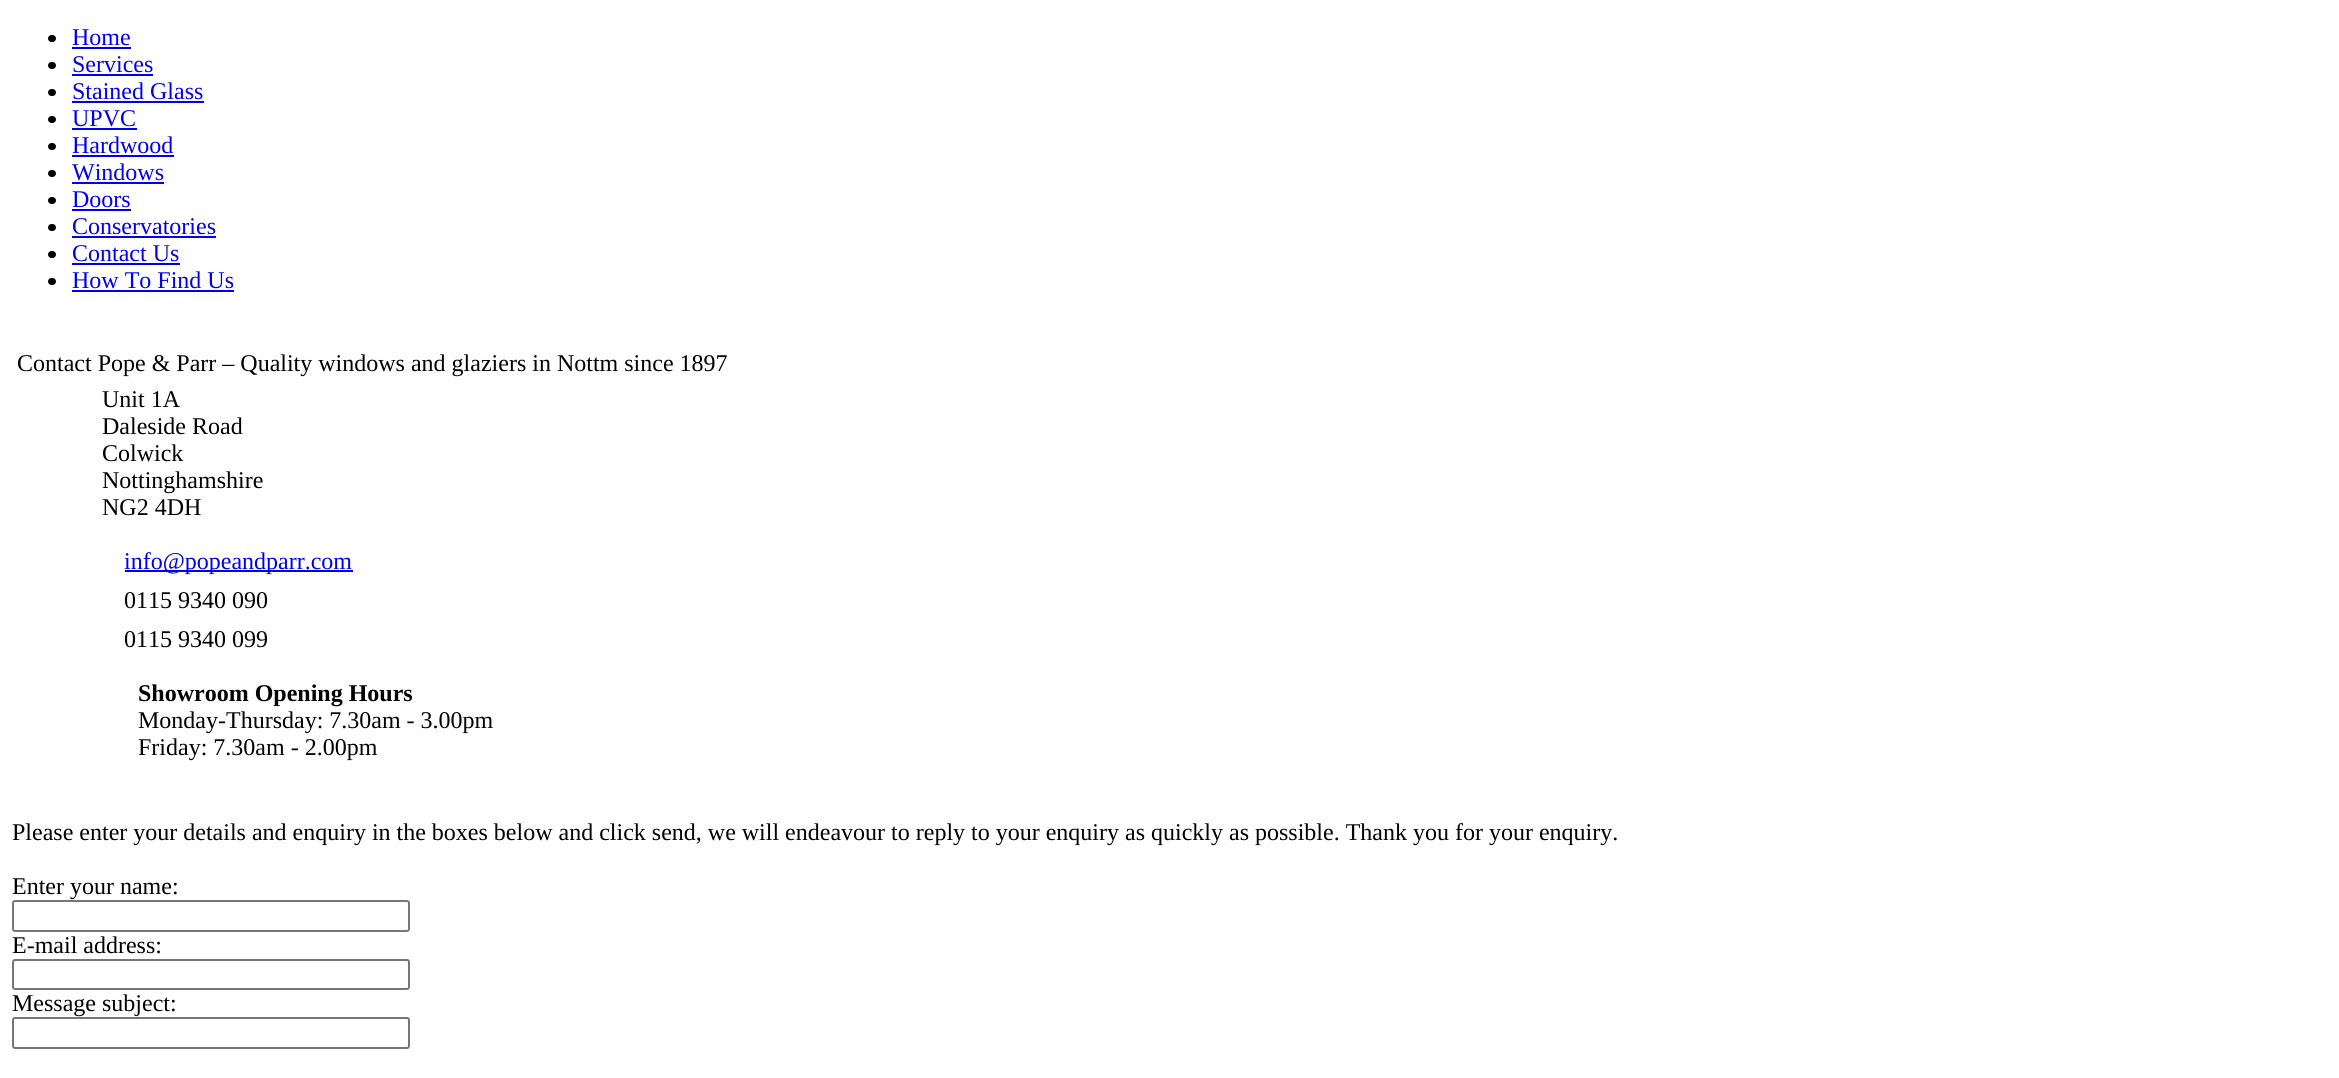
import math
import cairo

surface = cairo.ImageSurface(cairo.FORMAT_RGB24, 2339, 1078)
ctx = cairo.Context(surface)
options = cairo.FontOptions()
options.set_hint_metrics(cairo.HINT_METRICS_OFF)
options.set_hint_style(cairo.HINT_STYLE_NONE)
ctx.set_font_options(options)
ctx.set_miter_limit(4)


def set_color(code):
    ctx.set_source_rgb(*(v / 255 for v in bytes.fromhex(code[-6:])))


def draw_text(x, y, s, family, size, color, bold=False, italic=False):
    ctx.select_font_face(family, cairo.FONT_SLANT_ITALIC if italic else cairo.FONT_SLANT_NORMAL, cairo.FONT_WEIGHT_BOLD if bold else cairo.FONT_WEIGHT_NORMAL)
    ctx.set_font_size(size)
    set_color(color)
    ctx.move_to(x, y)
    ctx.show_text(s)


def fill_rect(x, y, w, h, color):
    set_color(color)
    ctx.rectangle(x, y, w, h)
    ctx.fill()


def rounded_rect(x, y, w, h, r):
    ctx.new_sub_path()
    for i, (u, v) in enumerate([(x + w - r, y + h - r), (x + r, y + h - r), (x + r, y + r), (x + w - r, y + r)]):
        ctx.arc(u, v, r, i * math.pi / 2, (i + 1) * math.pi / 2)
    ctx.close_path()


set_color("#ffffff")
ctx.paint()
set_color("#000000")
rounded_rect(48, 35, 8, 7, 3.5)
ctx.fill()
draw_text(72, 45, "Home", "Liberation Serif", 24, "#0000ee")
fill_rect(72, 47, 59, 2, "#0000ee")
set_color("#000000")
rounded_rect(48, 62, 8, 7, 3.5)
ctx.fill()
draw_text(72, 72, "Services", "Liberation Serif", 24, "#0000ee")
fill_rect(72, 74, 81, 2, "#0000ee")
set_color("#000000")
rounded_rect(48, 89, 8, 7, 3.5)
ctx.fill()
draw_text(72, 99, "Stained Glass", "Liberation Serif", 24, "#0000ee")
fill_rect(72, 101, 132, 2, "#0000ee")
set_color("#000000")
rounded_rect(48, 116, 8, 7, 3.5)
ctx.fill()
draw_text(72, 126, "UPVC", "Liberation Serif", 24, "#0000ee")
fill_rect(72, 128, 65, 2, "#0000ee")
set_color("#000000")
rounded_rect(48, 143, 8, 7, 3.5)
ctx.fill()
draw_text(72, 153, "Hardwood", "Liberation Serif", 24, "#0000ee")
fill_rect(72, 155, 102, 2, "#0000ee")
set_color("#000000")
rounded_rect(48, 170, 8, 7, 3.5)
ctx.fill()
draw_text(72, 180, "Windows", "Liberation Serif", 24, "#0000ee")
fill_rect(72, 182, 92, 2, "#0000ee")
set_color("#000000")
rounded_rect(48, 197, 8, 7, 3.5)
ctx.fill()
draw_text(72, 207, "Doors", "Liberation Serif", 24, "#0000ee")
fill_rect(72, 209, 59, 2, "#0000ee")
set_color("#000000")
rounded_rect(48, 224, 8, 7, 3.5)
ctx.fill()
draw_text(72, 234, "Conservatories", "Liberation Serif", 24, "#0000ee")
fill_rect(72, 236, 144, 2, "#0000ee")
set_color("#000000")
rounded_rect(48, 251, 8, 7, 3.5)
ctx.fill()
draw_text(72, 261, "Contact Us", "Liberation Serif", 24, "#0000ee")
fill_rect(72, 263, 108, 2, "#0000ee")
set_color("#000000")
rounded_rect(48, 278, 8, 7, 3.5)
ctx.fill()
draw_text(72, 288, "How To Find Us", "Liberation Serif", 24, "#0000ee")
fill_rect(72, 290, 162, 2, "#0000ee")
draw_text(17, 371, "Contact Pope & Parr – Quality windows and glaziers in Nottm since 1897", "Liberation Serif", 24, "#000000")
draw_text(102, 407, "Unit 1A", "Liberation Serif", 24, "#000000")
draw_text(102, 434, "Daleside Road", "Liberation Serif", 24, "#000000")
draw_text(102, 461, "Colwick", "Liberation Serif", 24, "#000000")
draw_text(102, 488, "Nottinghamshire", "Liberation Serif", 24, "#000000")
draw_text(102, 515, "NG2 4DH", "Liberation Serif", 24, "#000000")
fill_rect(125, 570, 228, 2, "#0000ee")
draw_text(124, 569, "info@popeandparr.com", "Liberation Serif", 24, "#0000ee")
draw_text(124, 608, "0115 9340 090", "Liberation Serif", 24, "#000000")
draw_text(124, 647, "0115 9340 099", "Liberation Serif", 24, "#000000")
draw_text(138, 701, "Showroom Opening Hours", "Liberation Serif", 24, "#000000", bold=True)
draw_text(138, 728, "Monday-Thursday: 7.30am - 3.00pm", "Liberation Serif", 24, "#000000")
draw_text(138, 755, "Friday: 7.30am - 2.00pm", "Liberation Serif", 24, "#000000")
draw_text(12, 840, "Please enter your details and enquiry in the boxes below and click send, we will endeavour to reply to your enquiry as quickly as possible. Thank you for your enquiry.", "Liberation Serif", 24, "#000000")
draw_text(12, 894, "Enter your name:", "Liberation Serif", 24, "#000000")
rounded_rect(13, 901, 396, 30, 2)
set_color("#767676")
ctx.stroke()
draw_text(12, 953, "E-mail address:", "Liberation Serif", 24, "#000000")
rounded_rect(13, 960, 396, 29, 2)
set_color("#767676")
ctx.stroke()
draw_text(12, 1011, "Message subject:", "Liberation Serif", 24, "#000000")
rounded_rect(13, 1018, 396, 30, 2)
set_color("#767676")
ctx.stroke()
surface.write_to_png("output.png")
